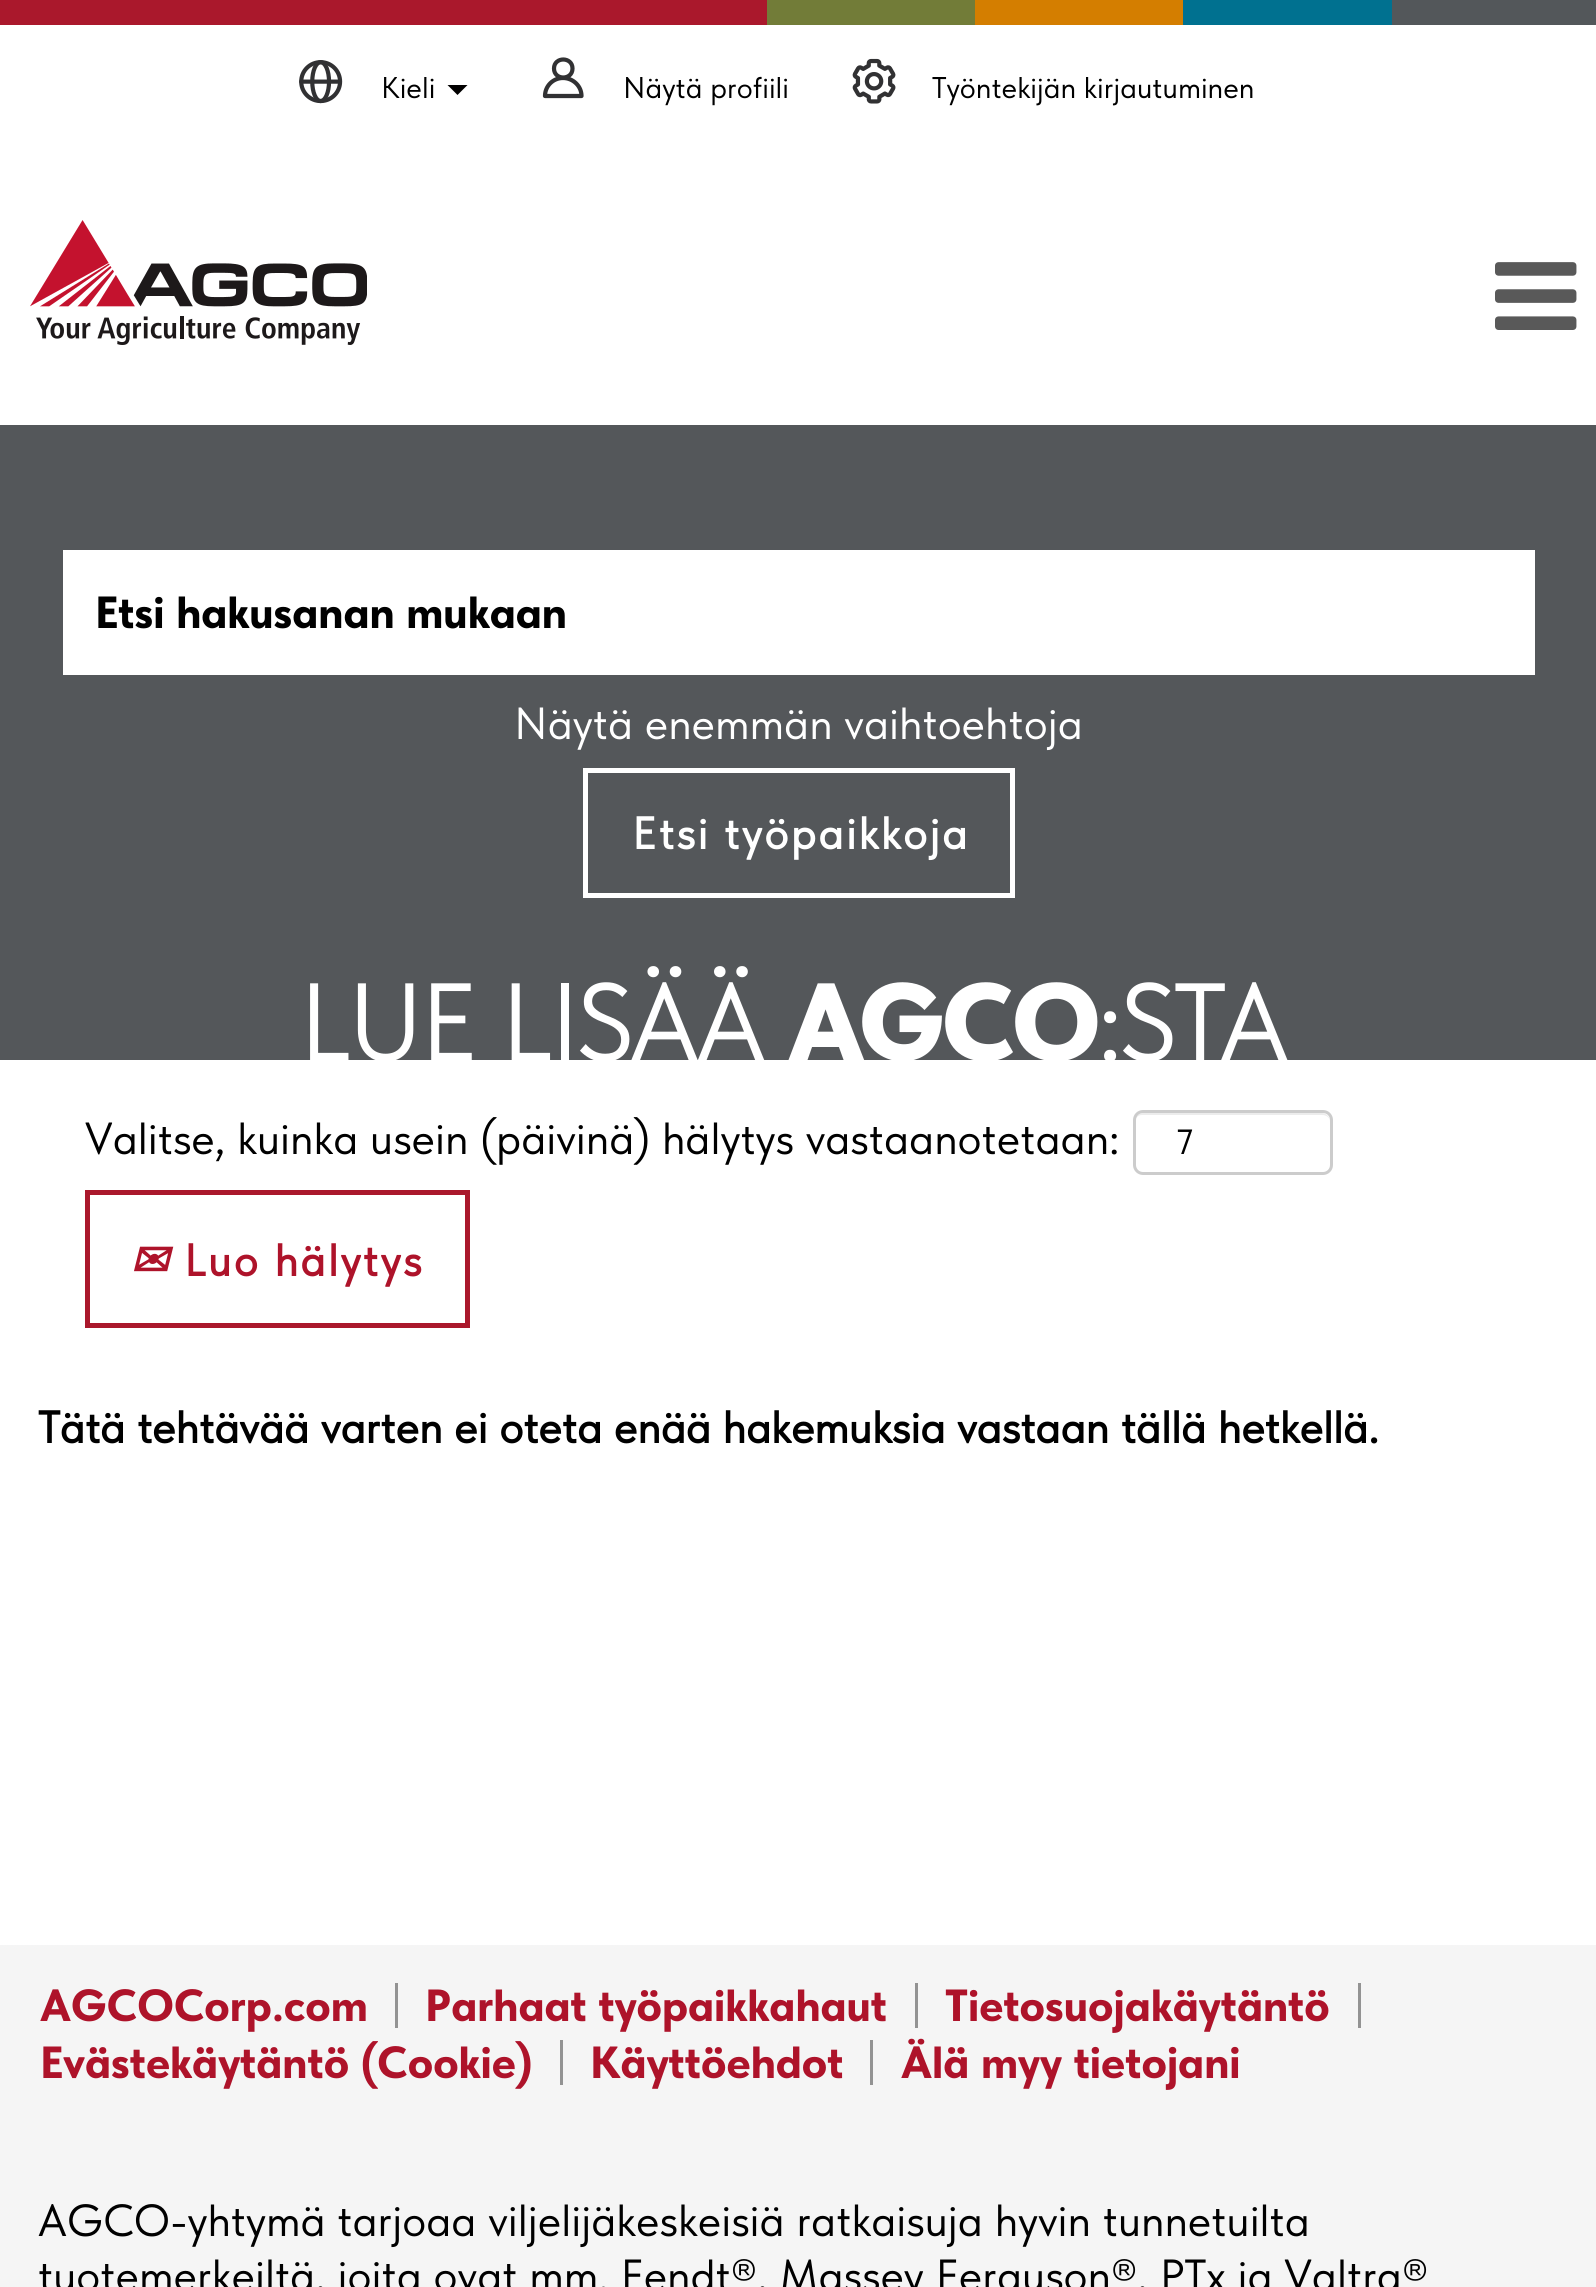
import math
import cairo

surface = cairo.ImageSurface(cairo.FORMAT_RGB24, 1596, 2287)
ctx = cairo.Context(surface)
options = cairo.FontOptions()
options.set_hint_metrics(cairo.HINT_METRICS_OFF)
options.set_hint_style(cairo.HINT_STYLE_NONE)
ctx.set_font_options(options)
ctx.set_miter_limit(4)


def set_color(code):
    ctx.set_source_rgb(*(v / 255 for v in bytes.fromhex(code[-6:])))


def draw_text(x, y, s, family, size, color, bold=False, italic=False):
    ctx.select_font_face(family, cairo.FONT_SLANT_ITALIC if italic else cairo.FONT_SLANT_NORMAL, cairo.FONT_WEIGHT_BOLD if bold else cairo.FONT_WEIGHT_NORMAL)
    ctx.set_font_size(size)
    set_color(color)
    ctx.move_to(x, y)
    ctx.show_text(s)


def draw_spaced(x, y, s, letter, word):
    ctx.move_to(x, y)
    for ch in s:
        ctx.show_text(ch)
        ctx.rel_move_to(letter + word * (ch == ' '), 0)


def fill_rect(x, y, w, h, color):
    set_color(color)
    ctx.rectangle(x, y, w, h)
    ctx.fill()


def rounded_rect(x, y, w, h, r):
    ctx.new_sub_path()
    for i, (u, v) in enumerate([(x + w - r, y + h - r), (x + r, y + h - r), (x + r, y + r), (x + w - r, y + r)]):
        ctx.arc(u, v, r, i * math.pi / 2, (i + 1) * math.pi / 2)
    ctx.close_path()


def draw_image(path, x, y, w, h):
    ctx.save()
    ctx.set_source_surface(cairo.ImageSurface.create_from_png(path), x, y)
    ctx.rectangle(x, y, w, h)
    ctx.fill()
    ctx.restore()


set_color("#ffffff")
ctx.paint()
draw_image("assets/img1.png", 0, 0, 1596, 25)
draw_image("assets/img2.png", 299, 60, 44, 44)
draw_text(381, 98, "Kieli", "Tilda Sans", 30, "#000000")
set_color("#010000")
ctx.new_path()
ctx.move_to(447.5, 85)
ctx.line_to(467.5, 85)
ctx.line_to(457.5, 95)
ctx.close_path()
ctx.fill()
ctx.new_path()
ctx.move_to(572.5, 68.5)
ctx.curve_to(572.5, 80.5, 554, 80.5, 554, 68.5)
ctx.curve_to(554, 56.5, 572.5, 56.5, 572.5, 68.5)
ctx.close_path()
ctx.move_to(545, 96)
ctx.curve_to(545, 86, 553, 78, 563, 78)
ctx.curve_to(573, 78, 581.5, 86, 581.5, 96)
ctx.close_path()
set_color("#313133")
ctx.set_line_width(4.2)
ctx.set_line_cap(cairo.LINE_CAP_ROUND)
ctx.set_line_join(cairo.LINE_JOIN_ROUND)
ctx.stroke()
draw_text(623, 98, "Näytä profiili", "Tilda Sans", 30, "#000000")
draw_image("assets/img3.png", 852, 58, 44, 46)
draw_text(932, 98, "Työntekijän kirjautuminen", "Tilda Sans", 30, "#000000")
draw_image("assets/img4.png", 30, 220, 337, 125)
draw_image("assets/img5.png", 1495, 262, 82, 68)
fill_rect(0, 425, 1596, 635, "#54575a")
draw_image("assets/img6.png", 310, 966, 978, 94)
fill_rect(63, 550, 1472, 125, "#ffffff")
draw_text(95, 628, "Etsi hakusanan mukaan", "Tilda Sans ExtraBold", 45, "#000000")
draw_text(514, 739, "Näytä enemmän vaihtoehtoja", "Tilda Sans", 45, "#ffffff")
ctx.rectangle(585.5, 770.5, 427, 125)
ctx.set_line_width(5)
ctx.set_line_cap(cairo.LINE_CAP_BUTT)
ctx.set_line_join(cairo.LINE_JOIN_MITER)
ctx.stroke()
ctx.select_font_face("Tilda Sans", cairo.FONT_SLANT_NORMAL, cairo.FONT_WEIGHT_BOLD)
draw_spaced(632, 849, "Etsi työpaikkoja", 2.5, 0)
draw_text(85, 1154, "Valitse, kuinka usein (päivinä) hälytys vastaanotetaan:", "Tilda Sans", 45, "#000000")
set_color("#ececec")
ctx.new_path()
ctx.move_to(1142, 1115)
ctx.line_to(1322, 1115)
ctx.curve_to(1327, 1115, 1330, 1118, 1330, 1122)
ctx.line_to(1330, 1121)
ctx.curve_to(1330, 1117, 1326, 1113, 1322, 1113)
ctx.line_to(1143, 1113)
ctx.curve_to(1139, 1113, 1135, 1117, 1135, 1121)
ctx.line_to(1135, 1122)
ctx.curve_to(1135, 1118, 1138, 1115, 1142, 1115)
ctx.close_path()
ctx.fill()
rounded_rect(1134.5, 1111.5, 197, 62, 8.5)
set_color("#cccccc")
ctx.set_line_width(3)
ctx.stroke()
draw_text(1176, 1154, "7", "Tilda Sans", 35, "#000000")
ctx.rectangle(87.5, 1192.5, 380, 133)
set_color("#aa182c")
ctx.set_line_width(5)
ctx.stroke()
ctx.select_font_face("DejaVu Sans", cairo.FONT_SLANT_ITALIC, cairo.FONT_WEIGHT_BOLD)
ctx.set_font_size(45)
set_color("#ae132a")
draw_spaced(130, 1276, "✉", 2.5, 0)
ctx.select_font_face("Tilda Sans", cairo.FONT_SLANT_NORMAL, cairo.FONT_WEIGHT_BOLD)
draw_spaced(184, 1276, "Luo hälytys", 2.5, 0)
draw_text(38, 1443, "Tätä tehtävää varten ei oteta enää hakemuksia vastaan tällä hetkellä.", "Tilda Sans", 45, "#000000", bold=True)
fill_rect(0, 1945, 1596, 342, "#f5f5f5")
fill_rect(395, 1983, 3, 45, "#939393")
draw_text(40, 2021, "AGCOCorp.com", "Tilda Sans ExtraBold", 45, "#ae132a")
fill_rect(915, 1983, 3, 45, "#939393")
draw_text(425, 2021, "Parhaat työpaikkahaut", "Tilda Sans ExtraBold", 45, "#ae132a")
fill_rect(1358, 1983, 3, 45, "#939393")
draw_text(945, 2021, "Tietosuojakäytäntö", "Tilda Sans ExtraBold", 45, "#ae132a")
fill_rect(560, 2040, 3, 45, "#939393")
draw_text(40, 2078, "Evästekäytäntö (Cookie)", "Tilda Sans ExtraBold", 45, "#ae132a")
fill_rect(870, 2040, 3, 45, "#939393")
draw_text(590, 2078, "Käyttöehdot", "Tilda Sans ExtraBold", 45, "#ae132a")
draw_text(901, 2078, "Älä myy tietojani", "Tilda Sans ExtraBold", 45, "#ae132a")
draw_text(38, 2236, "AGCO-yhtymä tarjoaa viljelijäkeskeisiä ratkaisuja hyvin tunnetuilta", "Tilda Sans", 45, "#000000")
draw_text(38, 2291, "tuotemerkeiltä, joita ovat mm. Fendt®, Massey Ferguson®, PTx ja Valtra®", "Tilda Sans", 45, "#000000")
surface.write_to_png("output.png")
